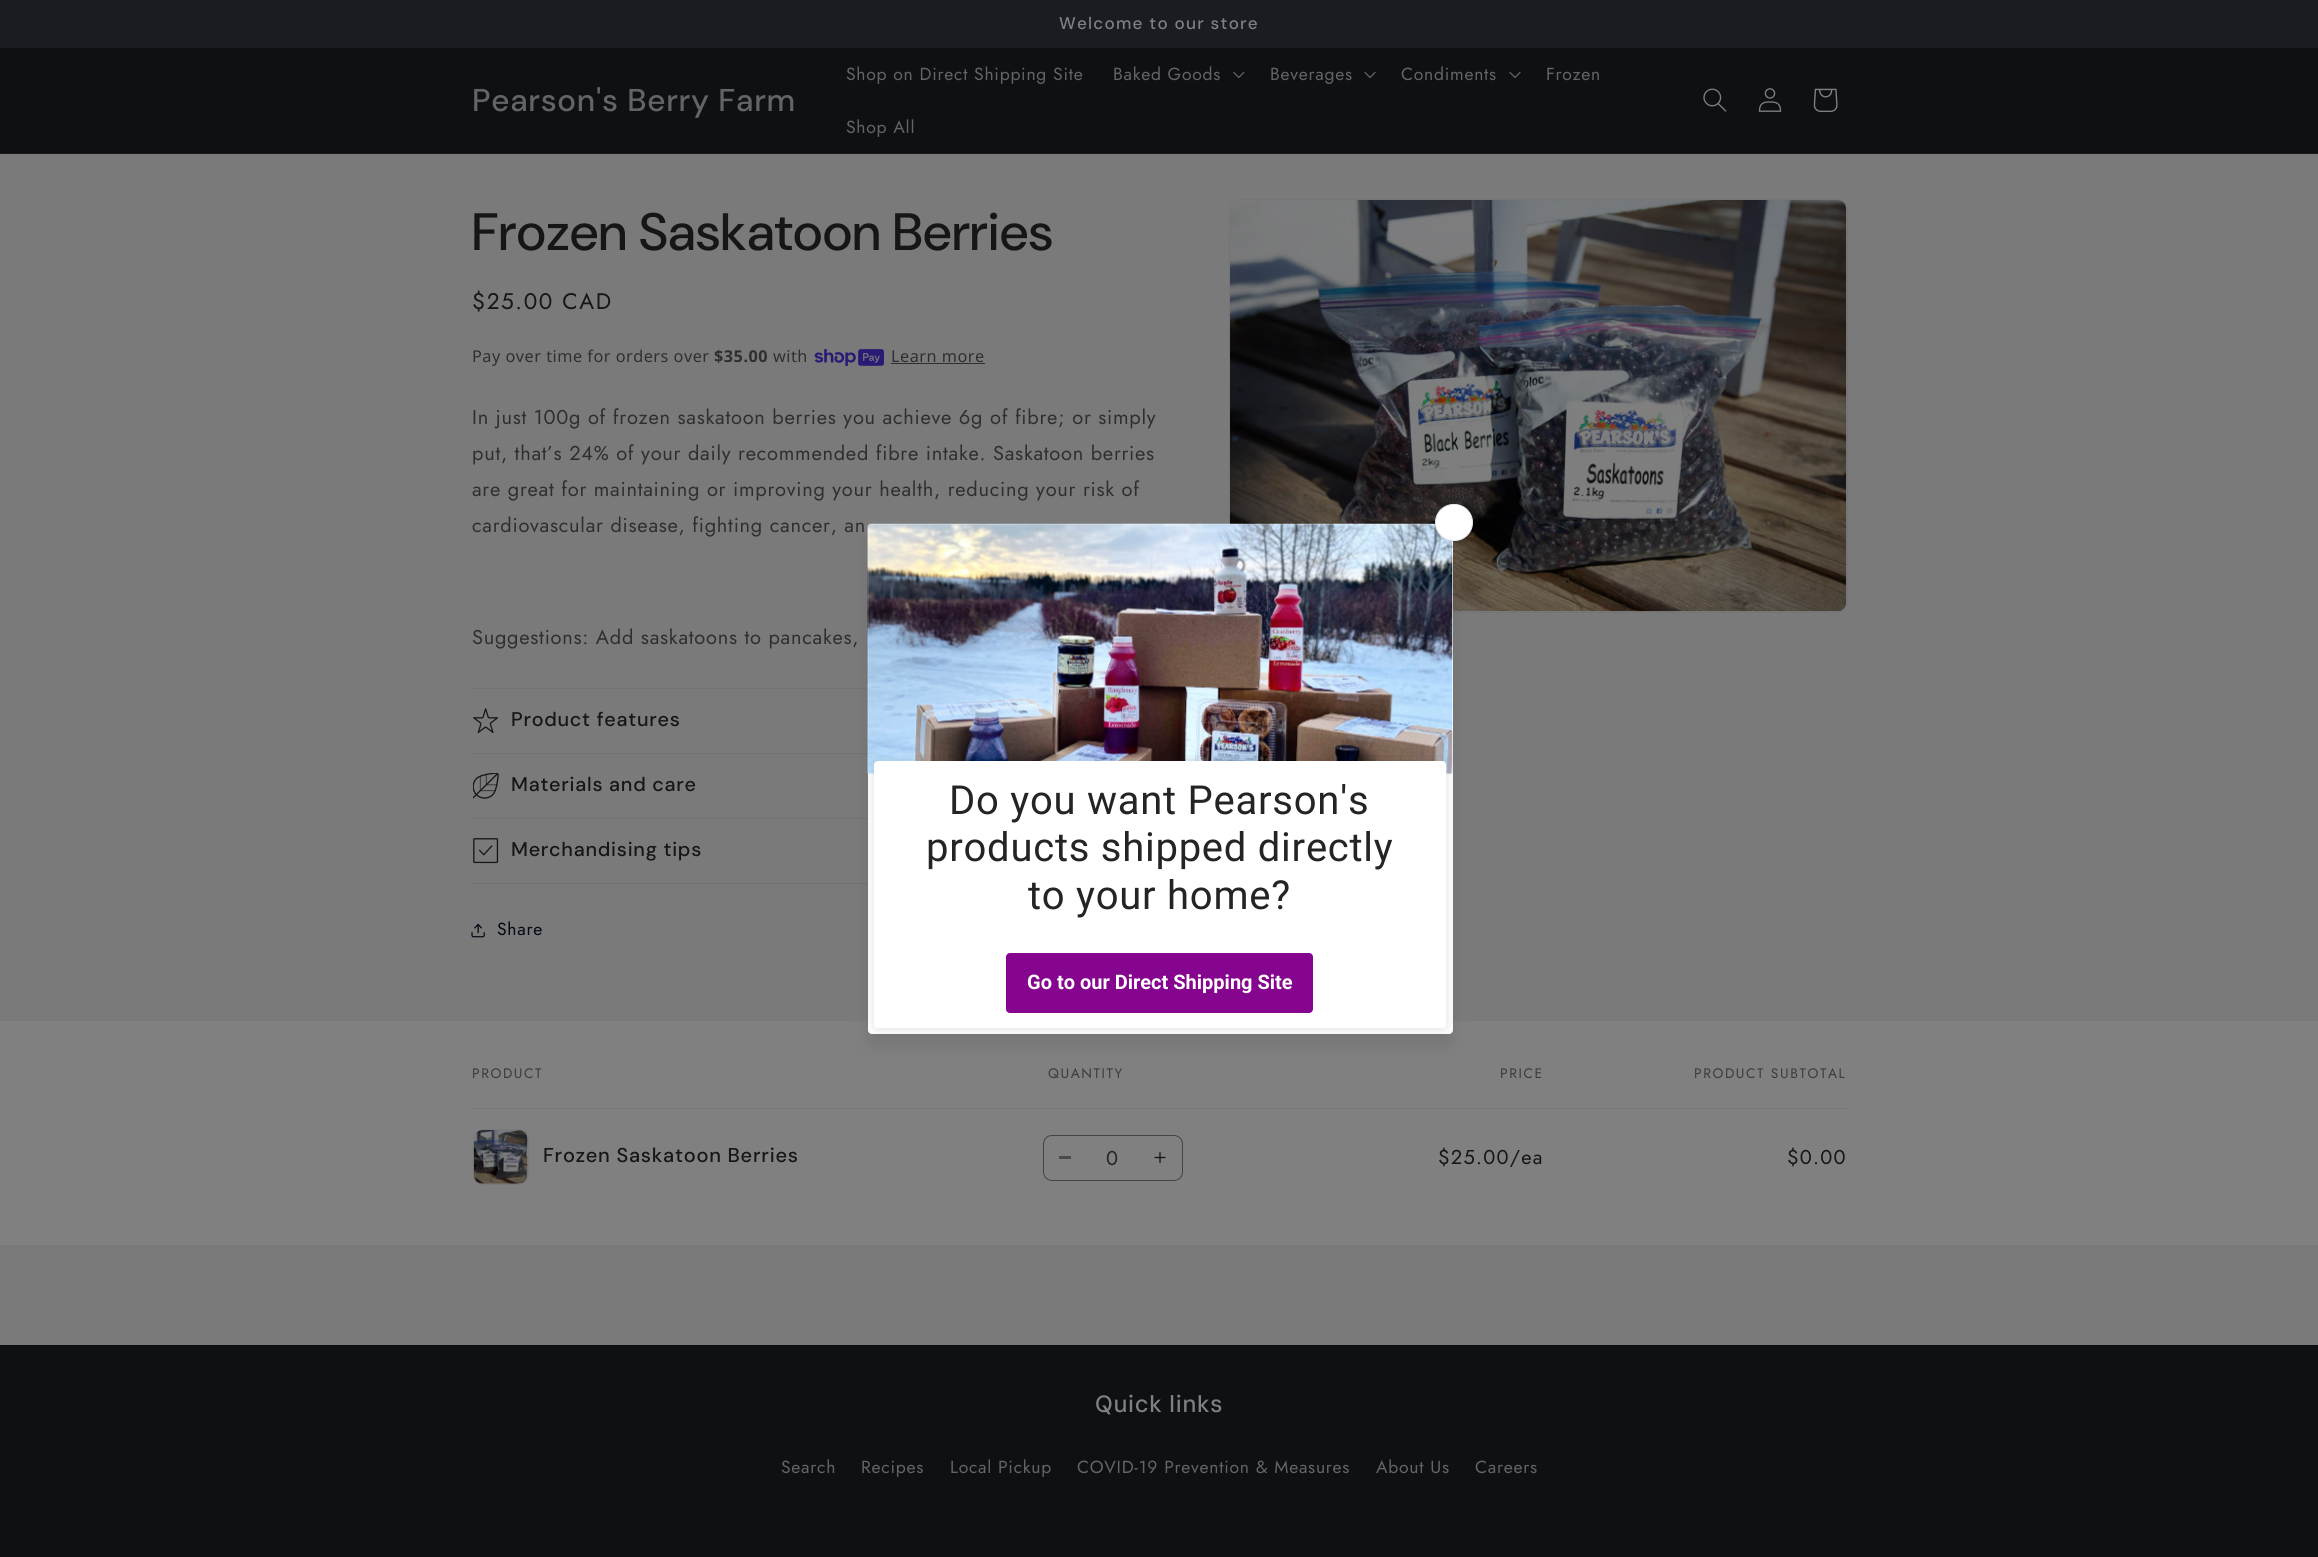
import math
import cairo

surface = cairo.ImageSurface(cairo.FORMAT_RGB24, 2318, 1557)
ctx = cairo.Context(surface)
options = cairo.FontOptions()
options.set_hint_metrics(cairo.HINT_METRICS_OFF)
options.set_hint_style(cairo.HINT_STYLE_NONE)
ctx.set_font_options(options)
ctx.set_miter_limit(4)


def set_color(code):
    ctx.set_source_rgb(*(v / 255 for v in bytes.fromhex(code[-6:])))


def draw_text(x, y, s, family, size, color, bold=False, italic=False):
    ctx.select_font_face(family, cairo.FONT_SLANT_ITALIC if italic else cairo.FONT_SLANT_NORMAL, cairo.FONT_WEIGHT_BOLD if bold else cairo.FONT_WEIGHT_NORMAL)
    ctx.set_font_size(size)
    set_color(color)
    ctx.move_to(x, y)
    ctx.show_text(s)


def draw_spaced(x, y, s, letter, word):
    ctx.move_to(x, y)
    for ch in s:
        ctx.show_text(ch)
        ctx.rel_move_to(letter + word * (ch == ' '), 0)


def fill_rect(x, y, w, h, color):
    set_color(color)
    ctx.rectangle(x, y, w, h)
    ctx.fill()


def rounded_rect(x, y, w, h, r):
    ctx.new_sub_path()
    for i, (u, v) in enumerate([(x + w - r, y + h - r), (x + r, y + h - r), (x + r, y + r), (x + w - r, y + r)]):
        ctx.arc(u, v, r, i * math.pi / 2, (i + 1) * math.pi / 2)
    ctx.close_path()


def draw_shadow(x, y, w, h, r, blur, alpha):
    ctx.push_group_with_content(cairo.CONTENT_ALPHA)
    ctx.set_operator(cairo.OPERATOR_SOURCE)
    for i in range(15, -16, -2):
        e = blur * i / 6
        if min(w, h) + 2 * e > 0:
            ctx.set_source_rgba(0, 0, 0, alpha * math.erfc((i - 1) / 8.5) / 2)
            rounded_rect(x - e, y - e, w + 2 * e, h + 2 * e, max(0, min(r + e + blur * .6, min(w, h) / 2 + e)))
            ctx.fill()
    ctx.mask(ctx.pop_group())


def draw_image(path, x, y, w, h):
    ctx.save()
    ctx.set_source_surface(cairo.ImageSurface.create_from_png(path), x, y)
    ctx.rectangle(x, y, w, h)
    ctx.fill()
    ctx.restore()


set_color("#7a7a7a")
ctx.paint()
fill_rect(0, 0, 2318, 48, "#191c21")
ctx.select_font_face("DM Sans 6 Medium")
ctx.set_font_size(17)
set_color("#808080")
draw_spaced(1059, 29, "Welcome to our store", 1.25, 0)
fill_rect(0, 48, 2318, 105, "#0e1114")
fill_rect(0, 153, 2318, 1, "#171a1d")
ctx.select_font_face("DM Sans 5 Medium")
ctx.set_font_size(31.5)
set_color("#636465")
draw_spaced(472, 111, "Pearson's Berry Farm", 0.75, 0)
ctx.select_font_face("Jost")
ctx.set_font_size(17.5)
draw_spaced(846, 80, "Shop on Direct Shipping Site", 0.75, 0)
draw_spaced(1113, 80, "Baked Goods", 0.75, 0)
draw_image("assets/img1.png", 1233, 71, 12, 8)
draw_spaced(1270, 80, "Beverages", 0.75, 0)
draw_image("assets/img2.png", 1364, 72, 12, 6)
draw_spaced(1401, 80, "Condiments", 0.75, 0)
draw_image("assets/img2.png", 1509, 72, 12, 6)
draw_spaced(1546, 80, "Frozen", 0.75, 0)
draw_spaced(846, 133, "Shop All", 0.75, 0)
draw_image("assets/img3.png", 1703, 88, 24, 24)
draw_image("assets/img4.png", 1758, 88, 24, 24)
draw_image("assets/img5.png", 1813, 88, 25, 24)
ctx.select_font_face("DM Sans Medium")
ctx.set_font_size(52.5)
set_color("#161617")
draw_spaced(472, 250, "Frozen Saskatoon Berries", 0.75, 0)
ctx.select_font_face("Jost")
ctx.set_font_size(22.5)
draw_spaced(472, 309, "$25.00 CAD", 1.6, 0)
ctx.select_font_face("Noto Sans")
ctx.set_font_size(16.25)
set_color("#2f2f30")
draw_spaced(472, 362, "Pay over time for orders over", 0.5, 0)
ctx.select_font_face("Noto Sans", cairo.FONT_SLANT_NORMAL, cairo.FONT_WEIGHT_BOLD)
draw_spaced(714, 362, "$35.00", 0.5, 0)
ctx.select_font_face("Noto Sans")
draw_spaced(773, 362, "with", 0.5, 0)
draw_image("assets/img6.png", 814, 349, 70, 17)
draw_spaced(891, 362, "Learn more", 0.5, 0)
fill_rect(891, 363, 94, 1, "#2f2f30")
ctx.select_font_face("Jost")
ctx.set_font_size(20)
draw_spaced(472, 424, "In just 100g of frozen saskatoon berries you achieve 6g of fibre; or simply", 0.75, 0)
draw_spaced(472, 460, "put, that’s 24% of your daily recommended fibre intake. Saskatoon berries", 0.75, 0)
draw_spaced(472, 496, "are great for maintaining or improving your health, reducing your risk of", 0.75, 0)
draw_spaced(472, 532, "cardiovascular disease, fighting cancer, an", 0.75, 0)
draw_spaced(472, 644, "Suggestions: Add saskatoons to pancakes,", 0.75, 0)
fill_rect(473, 688, 395, 1, "#727272")
fill_rect(473, 753, 395, 1, "#727272")
draw_image("assets/img7.png", 473, 708, 26, 26)
ctx.select_font_face("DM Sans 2 Medium")
ctx.set_font_size(19.75)
set_color("#161617")
draw_spaced(511, 726, "Product features", 0.75, 0)
fill_rect(473, 818, 395, 1, "#727272")
draw_image("assets/img8.png", 473, 773, 26, 26)
set_color("#161617")
draw_spaced(511, 791, "Materials and care", 0.75, 0)
fill_rect(473, 883, 395, 1, "#727272")
draw_image("assets/img9.png", 473, 838, 26, 26)
set_color("#161617")
draw_spaced(511, 856, "Merchandising tips", 0.75, 0)
draw_image("assets/img10.png", 471, 923, 14, 15)
ctx.select_font_face("Jost")
ctx.set_font_size(17.5)
set_color("#000914")
draw_spaced(497, 935, "Share", 0.75, 0)
rounded_rect(1229.5, 199.5, 618, 413, 9.5)
set_color("#757575")
ctx.set_line_width(1)
ctx.stroke()
draw_image("assets/img11.png", 1230, 200, 617, 412)
fill_rect(0, 1021, 2318, 224, "#808080")
fill_rect(473, 1108, 1375, 1, "#787878")
ctx.set_font_size(13.75)
set_color("#3b3b3b")
draw_spaced(472, 1078, "PRODUCT", 1.6, 0)
draw_spaced(1048, 1078, "QUANTITY", 1.6, 0)
draw_spaced(1500, 1078, "PRICE", 1.6, 0)
draw_spaced(1694, 1078, "PRODUCT SUBTOTAL", 1.6, 0)
rounded_rect(473.5, 1129.5, 55, 55, 9.5)
set_color("#7a7a7a")
ctx.stroke()
draw_image("assets/img12.png", 473, 1130, 55, 54)
ctx.select_font_face("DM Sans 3 Medium")
ctx.set_font_size(20)
set_color("#161617")
draw_spaced(543, 1162, "Frozen Saskatoon Berries", 0.75, 0)
fill_rect(1059, 1156, 12, 3, "#4a4a4a")
draw_image("assets/img13.png", 1154, 1151, 12, 13)
rounded_rect(1043.5, 1135.5, 139, 45, 8.5)
set_color("#444444")
ctx.stroke()
draw_text(1106, 1165, "0", "Jost", 20, "#242424")
set_color("#161617")
draw_spaced(1438, 1164, "$25.00/ea", 1.25, 0)
draw_spaced(1787, 1164, "$0.00", 1.25, 0)
set_color("#000000")
draw_shadow(871, 540, 578, 503, 0, 9.5, 0.1)
set_color("#ffffff")
rounded_rect(868, 524, 585, 510, 4)
ctx.fill()
draw_image("assets/img14.png", 867, 523, 586, 252)
rounded_rect(1435.5, 504.5, 37, 36, 18)
ctx.fill_preserve()
set_color("#e2e8f0")
ctx.stroke()
set_color("#000000")
draw_shadow(876, 769, 568, 261, 1, 4, 0.05)
ctx.save()
ctx.rectangle(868, 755, 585, 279)
ctx.clip()
draw_shadow(878, 765, 565, 259, 0, 12.5, 0.12)
ctx.restore()
set_color("#ffffff")
rounded_rect(874, 761, 572, 267, 4)
ctx.fill()
ctx.select_font_face("Roboto")
ctx.set_font_size(40)
set_color("#242424")
draw_spaced(949, 814, "Do you want Pearson's", 0.75, 0)
draw_spaced(926, 861, "products shipped directly", 0.75, 0)
draw_spaced(1028, 909, "to your home?", 0.75, 0)
set_color("#85058e")
rounded_rect(1006, 953, 307, 60, 4)
ctx.fill()
draw_text(1027, 989, "Go to our Direct Shipping Site", "Roboto", 20, "#ffffff", bold=True)
fill_rect(0, 1345, 2318, 212, "#0e1114")
ctx.select_font_face("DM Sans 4 Medium")
ctx.set_font_size(23.5)
set_color("#808080")
draw_spaced(1095, 1412, "Quick links", 0.75, 0)
ctx.select_font_face("Jost")
ctx.set_font_size(17.5)
set_color("#636465")
draw_spaced(781, 1473, "Search", 0.75, 0)
draw_spaced(861, 1473, "Recipes", 0.75, 0)
draw_spaced(950, 1473, "Local Pickup", 0.75, 0)
draw_spaced(1077, 1473, "COVID-19 Prevention & Measures", 0.75, 0)
draw_spaced(1376, 1473, "About Us", 0.75, 0)
draw_spaced(1475, 1473, "Careers", 0.75, 0)
surface.write_to_png("output.png")
